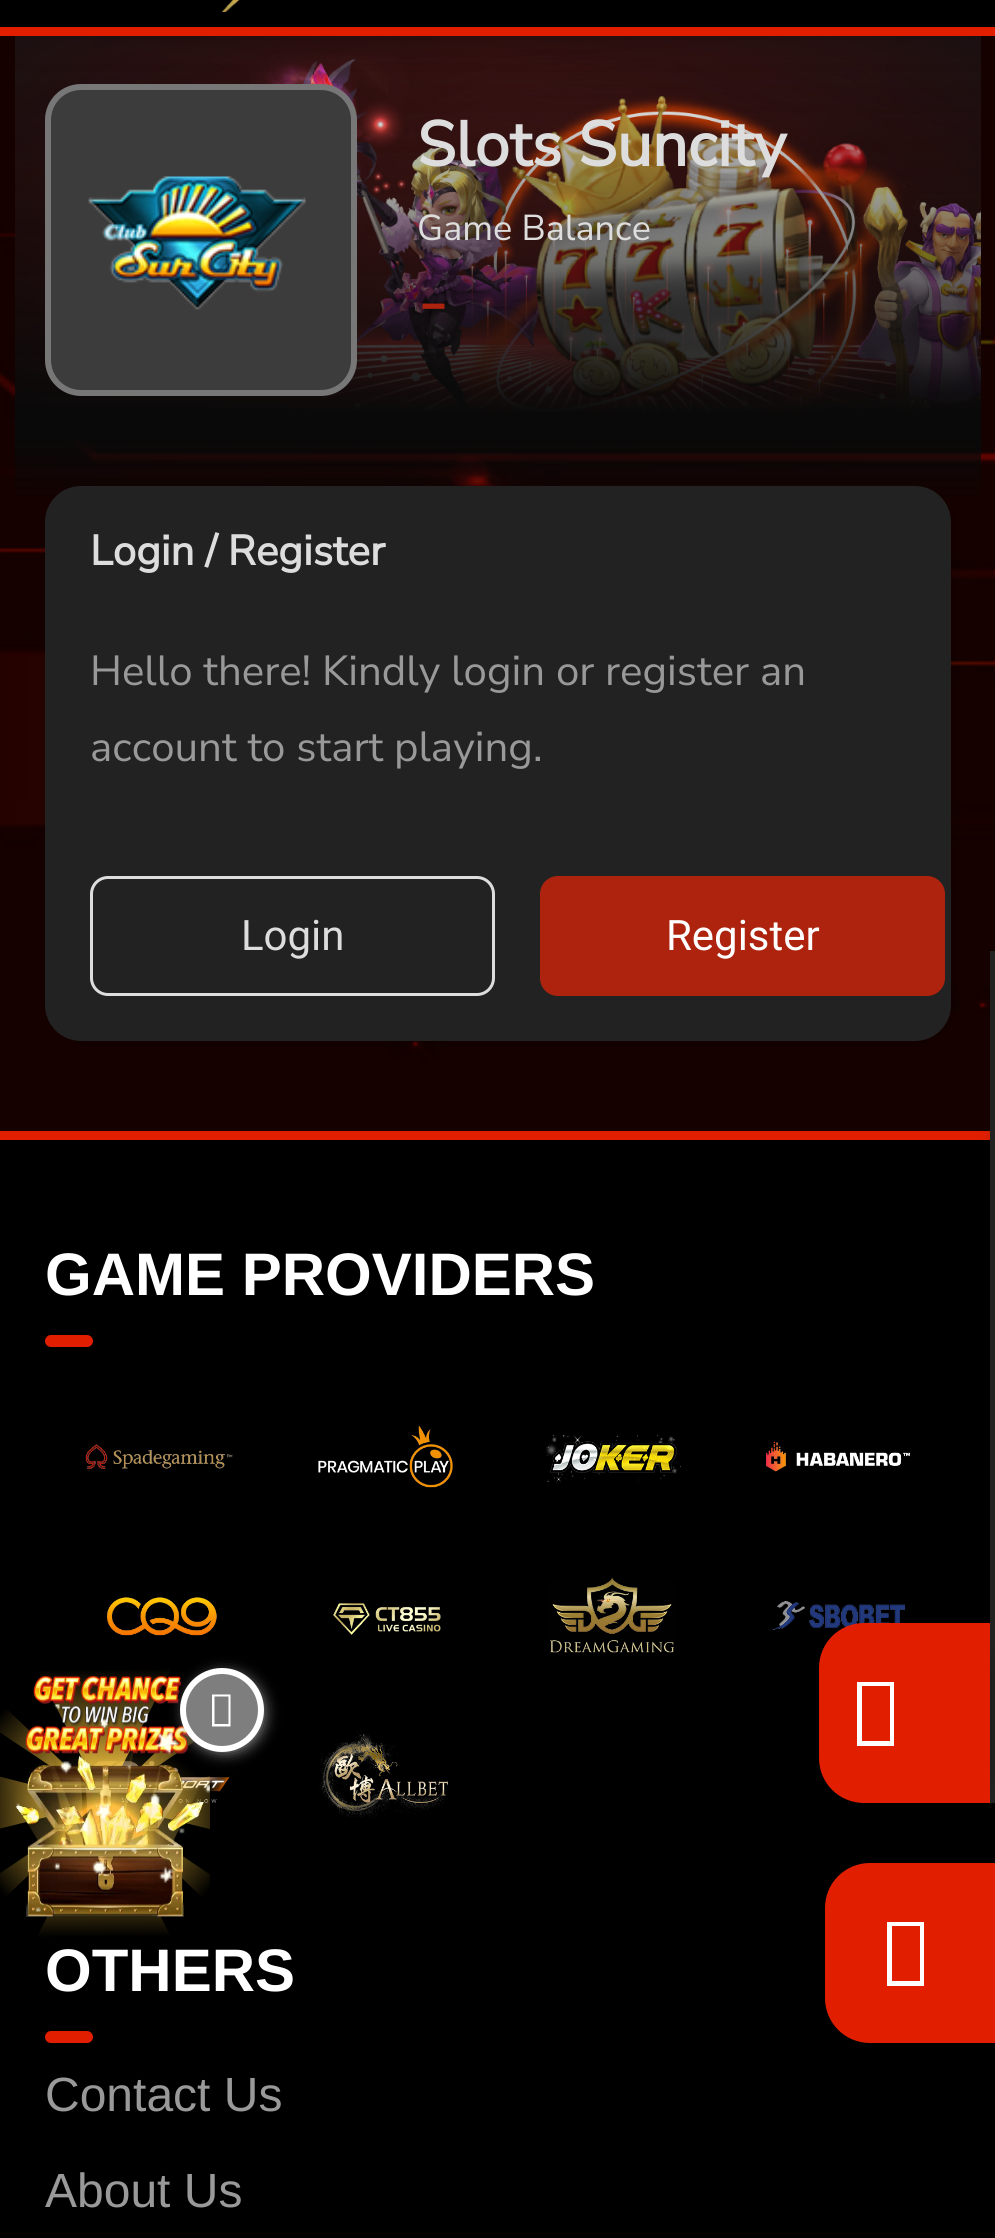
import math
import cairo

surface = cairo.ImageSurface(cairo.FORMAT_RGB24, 995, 2238)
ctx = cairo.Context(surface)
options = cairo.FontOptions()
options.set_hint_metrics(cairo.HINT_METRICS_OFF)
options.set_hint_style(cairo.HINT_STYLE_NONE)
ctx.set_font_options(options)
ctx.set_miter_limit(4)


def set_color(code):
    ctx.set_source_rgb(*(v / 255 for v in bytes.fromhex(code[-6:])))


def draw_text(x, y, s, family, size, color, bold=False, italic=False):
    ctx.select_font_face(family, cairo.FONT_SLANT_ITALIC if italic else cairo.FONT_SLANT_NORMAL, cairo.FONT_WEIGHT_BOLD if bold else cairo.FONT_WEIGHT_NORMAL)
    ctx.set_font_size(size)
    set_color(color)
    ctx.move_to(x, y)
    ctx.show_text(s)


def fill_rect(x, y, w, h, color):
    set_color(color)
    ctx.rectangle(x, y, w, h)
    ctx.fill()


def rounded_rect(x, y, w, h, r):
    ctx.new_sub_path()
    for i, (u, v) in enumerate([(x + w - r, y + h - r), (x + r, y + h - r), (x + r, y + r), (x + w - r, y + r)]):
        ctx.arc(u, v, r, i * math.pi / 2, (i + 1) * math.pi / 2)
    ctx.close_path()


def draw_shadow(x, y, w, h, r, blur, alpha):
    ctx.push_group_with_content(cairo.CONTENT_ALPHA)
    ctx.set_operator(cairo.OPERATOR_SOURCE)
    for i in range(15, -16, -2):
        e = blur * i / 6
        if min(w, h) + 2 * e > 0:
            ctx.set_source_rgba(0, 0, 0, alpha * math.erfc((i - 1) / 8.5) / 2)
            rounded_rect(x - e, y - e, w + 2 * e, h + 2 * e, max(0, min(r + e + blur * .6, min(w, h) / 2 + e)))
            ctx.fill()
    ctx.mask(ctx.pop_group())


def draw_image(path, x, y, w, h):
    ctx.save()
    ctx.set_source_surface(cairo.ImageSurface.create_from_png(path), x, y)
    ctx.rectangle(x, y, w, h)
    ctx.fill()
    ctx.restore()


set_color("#ffffff")
ctx.paint()
draw_image("assets/img1.png", 0, 36, 995, 1095)
fill_rect(0, 0, 995, 27, "#000000")
fill_rect(0, 27, 995, 9, "#e11f00")
draw_image("assets/img2.png", 222, 0, 18, 12)
draw_image("assets/img3.png", 15, 36, 966, 376)
gradient = cairo.LinearGradient(498, 505, 498, 52)
gradient.add_color_stop_rgba(0, 0.035, 0.035, 0.035, 0)
gradient.add_color_stop_rgba(0.15, 0.035, 0.035, 0.035, 1)
gradient.add_color_stop_rgba(0.2, 0.035, 0.035, 0.035, 1)
gradient.add_color_stop_rgba(1, 0.035, 0.035, 0.035, 0)
ctx.set_source(gradient)
ctx.rectangle(15, 63, 966, 435)
ctx.fill()
set_color("#3c3c3c")
rounded_rect(48, 87, 306, 306, 33)
ctx.fill_preserve()
set_color("#777777")
ctx.set_line_width(6)
ctx.stroke()
draw_image("assets/img4.png", 88, 176, 218, 134)
draw_text(417, 166, "Slots Suncity", "Nunito Sans", 63, "#dddddd", bold=True)
draw_text(417, 240, "Game Balance", "Nunito Sans", 36, "#dddddd")
draw_text(417, 327, "-", "Nunito Sans", 78, "#ad230e")
set_color("#000000")
draw_shadow(63, 504, 876, 525, 21, 12, 1)
set_color("#222222")
rounded_rect(45, 486, 906, 555, 36)
ctx.fill()
draw_text(90, 565, "Login / Register", "Nunito Sans", 42, "#dddddd", bold=True)
draw_text(90, 685, "Hello there! Kindly login or register an", "Nunito Sans", 42, "#999999")
draw_text(90, 761, "account to start playing.", "Nunito Sans", 42, "#999999")
rounded_rect(91.5, 877.5, 402, 117, 16.5)
set_color("#dddddd")
ctx.set_line_width(3)
ctx.stroke()
draw_text(241, 950, "Login", "Roboto", 42, "#dddddd")
set_color("#ad230e")
rounded_rect(541.5, 877.5, 402, 117, 16.5)
ctx.fill_preserve()
ctx.stroke()
draw_text(666, 950, "Register", "Roboto", 42, "#ffffff")
fill_rect(0, 1140, 995, 1098, "#000000")
fill_rect(0, 1131, 990, 9, "#e11f00")
draw_text(45, 1295, "GAME PROVIDERS", "Liberation Sans", 60, "#ffffff", bold=True)
set_color("#e11f00")
rounded_rect(45, 1335, 48, 12, 6)
ctx.fill()
draw_image("assets/img5.png", 85, 1444, 148, 25)
draw_image("assets/img6.png", 318, 1425, 135, 63)
draw_image("assets/img7.png", 545, 1434, 136, 49)
draw_image("assets/img8.png", 766, 1441, 144, 31)
draw_image("assets/img9.png", 107, 1597, 110, 39)
draw_image("assets/img10.png", 333, 1603, 108, 32)
draw_image("assets/img11.png", 550, 1578, 124, 75)
draw_image("assets/img12.png", 772, 1601, 133, 29)
draw_image("assets/img13.png", 93, 1760, 137, 43)
draw_image("assets/img14.png", 319, 1730, 129, 87)
draw_text(45, 1991, "OTHERS", "Liberation Sans", 60, "#ffffff", bold=True)
set_color("#e11f00")
rounded_rect(45, 2031, 48, 12, 6)
ctx.fill()
draw_text(45, 2111, "Contact Us", "Liberation Sans", 48, "#999999")
draw_text(45, 2207, "About Us", "Liberation Sans", 48, "#999999")
set_color("#000000")
draw_shadow(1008, 969, 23, 822, 0, 12, 1)
fill_rect(990, 951, 5, 852, "#222222")
set_color("#000000")
draw_shadow(837, 1641, 141, 150, 30, 12, 1)
set_color("#e11f00")
ctx.new_path()
ctx.move_to(864, 1623)
ctx.line_to(990, 1623)
ctx.line_to(990, 1803)
ctx.line_to(864, 1803)
ctx.curve_to(839, 1803, 819, 1783, 819, 1758)
ctx.line_to(819, 1668)
ctx.curve_to(819, 1643, 839, 1623, 864, 1623)
ctx.close_path()
ctx.fill()
set_color("#ffffff")
ctx.new_path()
ctx.move_to(857, 1746)
ctx.line_to(857, 1682)
ctx.line_to(894, 1682)
ctx.line_to(894, 1746)
ctx.close_path()
ctx.move_to(862, 1741)
ctx.line_to(890, 1741)
ctx.line_to(890, 1686)
ctx.line_to(862, 1686)
ctx.close_path()
ctx.fill()
gradient = cairo.LinearGradient(103, 1802, 102, 1669)
gradient.add_color_stop_rgba(0.29, 1, 0.796, 0.239, 0.78)
gradient.add_color_stop_rgba(1, 1, 0.796, 0.239, 0)
gradient.add_color_stop_rgba(1, 0, 0, 0, 0)
ctx.set_source(gradient)
ctx.new_path()
ctx.move_to(171, 1669)
ctx.line_to(104, 1802)
ctx.line_to(37, 1669)
ctx.close_path()
ctx.fill()
gradient = cairo.LinearGradient(105, 1803, 106, 1937)
gradient.add_color_stop_rgba(0.29, 0.784, 0.624, 0.188, 1)
gradient.add_color_stop_rgba(1, 0, 0, 0, 1)
ctx.set_source(gradient)
ctx.new_path()
ctx.move_to(37, 1937)
ctx.line_to(104, 1803)
ctx.line_to(171, 1937)
ctx.close_path()
ctx.fill()
gradient = cairo.LinearGradient(103, 1802, -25, 1803)
gradient.add_color_stop_rgba(0.29, 1, 0.796, 0.239, 0.78)
gradient.add_color_stop_rgba(1, 1, 0.796, 0.239, 0)
gradient.add_color_stop_rgba(1, 0, 0, 0, 0)
ctx.set_source(gradient)
ctx.new_path()
ctx.move_to(-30, 1769)
ctx.line_to(103, 1803)
ctx.line_to(-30, 1836)
ctx.close_path()
ctx.fill()
ctx.save()
ctx.rectangle(0, 1668, 210, 270)
ctx.clip()
gradient = cairo.LinearGradient(104, 1803, 232, 1802)
gradient.add_color_stop_rgba(0.29, 1, 0.796, 0.239, 0.78)
gradient.add_color_stop_rgba(1, 1, 0.796, 0.239, 0)
gradient.add_color_stop_rgba(1, 0, 0, 0, 0)
ctx.set_source(gradient)
ctx.new_path()
ctx.move_to(238, 1836)
ctx.line_to(104, 1803)
ctx.line_to(238, 1769)
ctx.close_path()
ctx.fill()
gradient = cairo.LinearGradient(104, 1803, 210, 1889)
gradient.add_color_stop_rgba(0.27, 0.78, 0.62, 0.188, 1)
gradient.add_color_stop_rgba(1, 0, 0, 0, 1)
ctx.set_source(gradient)
ctx.new_path()
ctx.move_to(240, 1934)
ctx.line_to(104, 1803)
ctx.line_to(261, 1909)
ctx.close_path()
ctx.fill()
ctx.restore()
gradient = cairo.LinearGradient(103, 1802, -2.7, 1888)
gradient.add_color_stop_rgba(0.27, 0.78, 0.62, 0.188, 1)
gradient.add_color_stop_rgba(1, 0, 0, 0, 1)
ctx.set_source(gradient)
ctx.new_path()
ctx.move_to(-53, 1909)
ctx.line_to(104, 1803)
ctx.line_to(-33, 1934)
ctx.close_path()
ctx.fill()
gradient = cairo.LinearGradient(104, 1802, 0.5, 1713)
gradient.add_color_stop_rgba(0.25, 1, 0.796, 0.239, 0.78)
gradient.add_color_stop_rgba(1, 1, 0.796, 0.239, 0)
gradient.add_color_stop_rgba(1, 0, 0, 0, 0)
ctx.set_source(gradient)
ctx.new_path()
ctx.move_to(-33, 1671)
ctx.line_to(104, 1802)
ctx.line_to(-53, 1697)
ctx.close_path()
ctx.fill()
gradient = cairo.LinearGradient(104, 1803, 213, 1720)
gradient.add_color_stop_rgba(0.25, 1, 0.796, 0.239, 0.78)
gradient.add_color_stop_rgba(1, 1, 0.796, 0.239, 0)
gradient.add_color_stop_rgba(1, 0, 0, 0, 0)
ctx.set_source(gradient)
ctx.new_path()
ctx.move_to(261, 1697)
ctx.line_to(104, 1802)
ctx.line_to(240, 1671)
ctx.close_path()
ctx.fill()
draw_image("assets/img15.png", 14, 1676, 190, 241)
draw_image("assets/img16.png", 15, 1704, 195, 208)
set_color("#999999")
draw_shadow(186, 1674, 78, 78, 39, 7.5, 1)
set_color("#7e7e7e")
ctx.arc(222, 1710, 39, 0, 2 * math.pi)
ctx.fill_preserve()
set_color("#ffffff")
ctx.set_line_width(6)
ctx.stroke()
ctx.new_path()
ctx.move_to(212, 1726.5)
ctx.line_to(212, 1694.5)
ctx.line_to(230.5, 1694.5)
ctx.line_to(230.5, 1726.5)
ctx.close_path()
ctx.move_to(214.5, 1724)
ctx.line_to(228.5, 1724)
ctx.line_to(228.5, 1696.5)
ctx.line_to(214.5, 1696.5)
ctx.close_path()
ctx.fill()
set_color("#e11f00")
ctx.new_path()
ctx.move_to(870, 1863)
ctx.line_to(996, 1863)
ctx.line_to(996, 2043)
ctx.line_to(870, 2043)
ctx.curve_to(845, 2043, 825, 2023, 825, 1998)
ctx.line_to(825, 1908)
ctx.curve_to(825, 1883, 845, 1863, 870, 1863)
ctx.close_path()
ctx.fill()
set_color("#ffffff")
ctx.new_path()
ctx.move_to(887, 1986)
ctx.line_to(887, 1922)
ctx.line_to(924, 1922)
ctx.line_to(924, 1986)
ctx.close_path()
ctx.move_to(892, 1981)
ctx.line_to(920, 1981)
ctx.line_to(920, 1926)
ctx.line_to(892, 1926)
ctx.close_path()
ctx.fill()
surface.write_to_png("output.png")
